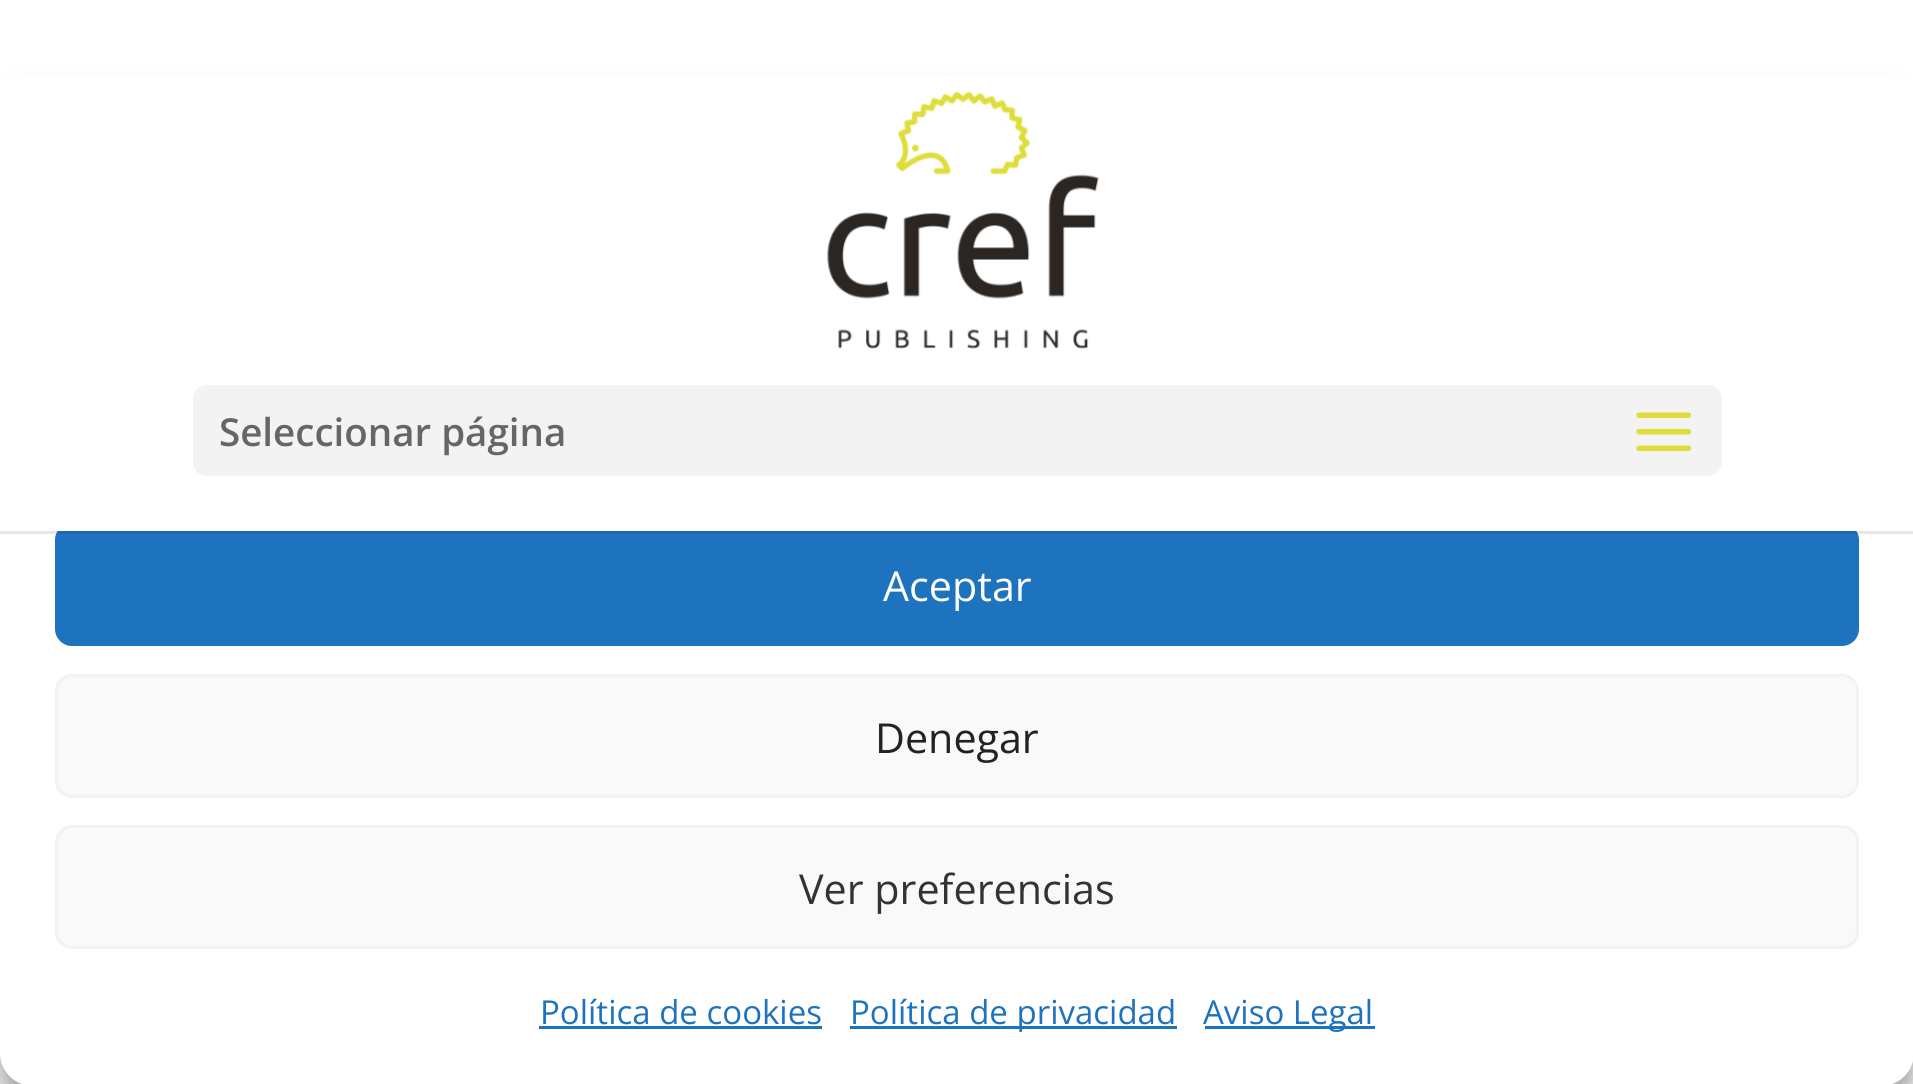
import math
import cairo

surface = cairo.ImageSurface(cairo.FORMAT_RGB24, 1913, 1084)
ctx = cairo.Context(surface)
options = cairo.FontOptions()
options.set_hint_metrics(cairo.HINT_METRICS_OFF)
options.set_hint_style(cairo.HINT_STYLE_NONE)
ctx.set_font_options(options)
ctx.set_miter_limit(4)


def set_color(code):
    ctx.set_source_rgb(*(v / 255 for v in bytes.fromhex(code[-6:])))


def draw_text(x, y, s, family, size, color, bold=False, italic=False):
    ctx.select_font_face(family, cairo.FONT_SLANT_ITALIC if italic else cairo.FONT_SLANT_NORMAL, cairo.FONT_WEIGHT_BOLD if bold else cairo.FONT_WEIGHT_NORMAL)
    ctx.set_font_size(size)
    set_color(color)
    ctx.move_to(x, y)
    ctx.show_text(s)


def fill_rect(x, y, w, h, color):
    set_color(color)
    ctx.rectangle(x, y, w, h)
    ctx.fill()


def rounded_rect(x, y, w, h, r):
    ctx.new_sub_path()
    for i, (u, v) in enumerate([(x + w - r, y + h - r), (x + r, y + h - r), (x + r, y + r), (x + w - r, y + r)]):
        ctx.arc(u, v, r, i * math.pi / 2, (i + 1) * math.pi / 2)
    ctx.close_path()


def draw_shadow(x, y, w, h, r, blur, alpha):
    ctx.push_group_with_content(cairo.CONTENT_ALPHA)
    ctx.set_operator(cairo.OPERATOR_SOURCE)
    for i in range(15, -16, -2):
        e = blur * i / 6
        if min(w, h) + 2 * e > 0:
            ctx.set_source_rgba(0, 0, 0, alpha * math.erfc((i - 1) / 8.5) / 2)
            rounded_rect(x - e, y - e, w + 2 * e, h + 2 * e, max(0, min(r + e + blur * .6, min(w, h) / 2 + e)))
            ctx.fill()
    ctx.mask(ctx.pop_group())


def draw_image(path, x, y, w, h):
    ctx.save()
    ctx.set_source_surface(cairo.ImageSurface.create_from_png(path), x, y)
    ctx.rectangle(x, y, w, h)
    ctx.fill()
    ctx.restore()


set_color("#ffffff")
ctx.paint()
set_color("#000000")
draw_shadow(0, 110, 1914, 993, 33, 8, 0.23)
draw_shadow(0, 121, 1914, 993, 33, 27.5, 0.19)
set_color("#ffffff")
rounded_rect(0, 94, 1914, 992, 33)
ctx.fill()
set_color("#1e73be")
rounded_rect(56.5, 524.5, 1801, 120, 15.5)
ctx.fill_preserve()
ctx.set_line_width(3)
ctx.stroke()
ctx.set_source_rgba(0, 0, 0, 0.1)
ctx.rectangle(0, 531, 1913, 3)
ctx.fill()
fill_rect(0, 76, 1913, 455, "#ffffff")
draw_image("assets/img1.png", 827, 91, 272, 258)
set_color("#f3f3f3")
rounded_rect(193, 385, 1529, 91, 14)
ctx.fill()
draw_text(219, 446, "Seleccionar página", "Open Sans SemiBold", 38.5, "#666666")
draw_image("assets/img2.png", 1636, 412, 56, 39)
draw_text(883, 601, "Aceptar", "Open Sans", 41.25, "#ffffff")
set_color("#f9f9f9")
rounded_rect(56.5, 675.5, 1801, 121, 15.5)
ctx.fill_preserve()
set_color("#f2f2f2")
ctx.stroke()
draw_text(875, 753, "Denegar", "Open Sans", 41.25, "#222222")
set_color("#f9f9f9")
rounded_rect(56.5, 826.5, 1801, 121, 15.5)
ctx.fill_preserve()
set_color("#f2f2f2")
ctx.stroke()
draw_text(799, 904, "Ver preferencias", "Open Sans", 41.25, "#333333")
draw_text(540, 1024, "Política de cookies", "Open Sans", 33, "#1e73be")
fill_rect(539, 1026, 283, 3, "#1e73be")
fill_rect(850, 1026, 327, 3, "#1e73be")
draw_text(850, 1024, "Política de privacidad", "Open Sans", 33, "#1e73be")
fill_rect(1205, 1026, 170, 3, "#1e73be")
draw_text(1203, 1024, "Aviso Legal", "Open Sans", 33, "#1e73be")
surface.write_to_png("output.png")
